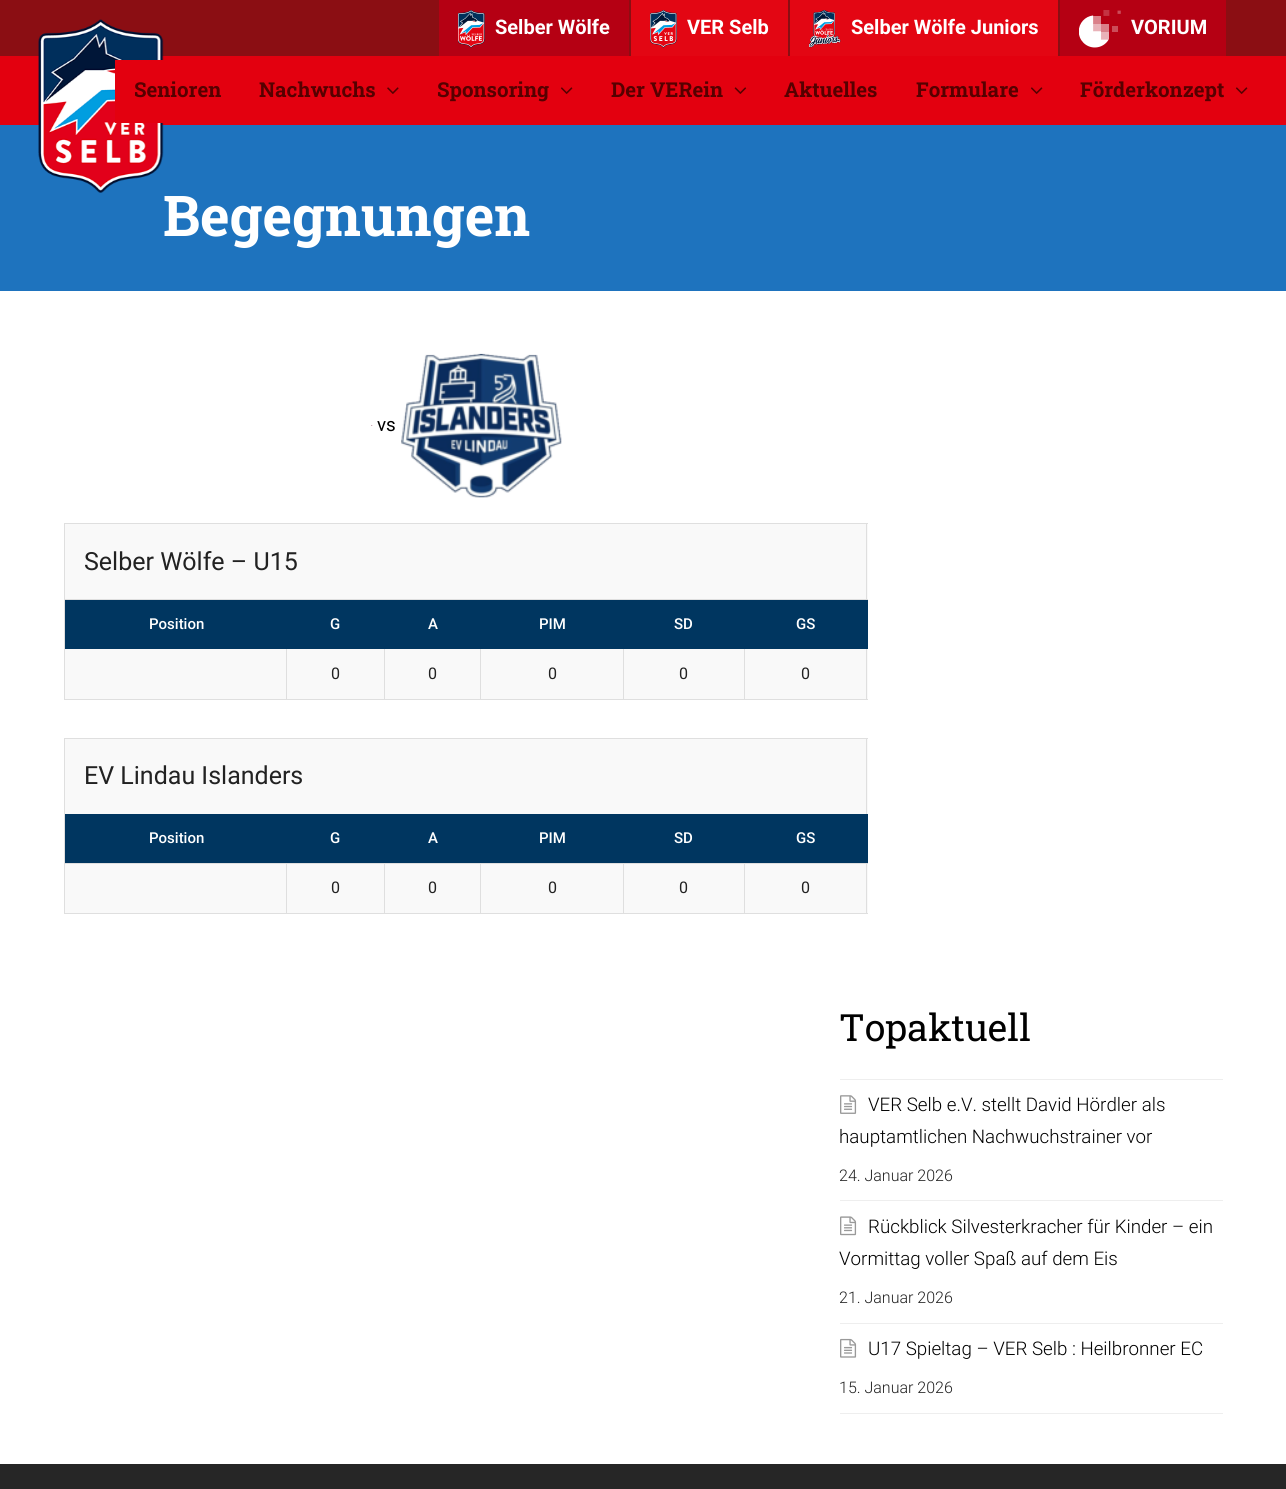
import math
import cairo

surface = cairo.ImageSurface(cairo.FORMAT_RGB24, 1286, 1489)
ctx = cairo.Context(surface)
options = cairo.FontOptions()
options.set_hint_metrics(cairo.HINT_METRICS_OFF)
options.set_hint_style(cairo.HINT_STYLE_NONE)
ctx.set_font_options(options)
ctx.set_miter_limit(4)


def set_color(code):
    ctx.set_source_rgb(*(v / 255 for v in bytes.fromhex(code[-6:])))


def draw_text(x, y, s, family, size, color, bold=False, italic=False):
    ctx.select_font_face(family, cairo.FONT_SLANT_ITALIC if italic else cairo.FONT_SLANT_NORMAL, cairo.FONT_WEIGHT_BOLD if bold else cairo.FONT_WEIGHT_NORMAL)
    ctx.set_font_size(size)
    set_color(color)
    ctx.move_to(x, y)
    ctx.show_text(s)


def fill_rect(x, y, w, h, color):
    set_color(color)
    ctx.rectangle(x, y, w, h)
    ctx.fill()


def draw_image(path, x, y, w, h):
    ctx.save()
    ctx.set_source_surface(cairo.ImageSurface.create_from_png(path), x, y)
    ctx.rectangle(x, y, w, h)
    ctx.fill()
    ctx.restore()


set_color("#ffffff")
ctx.paint()
fill_rect(0, 0, 1286, 56, "#8b0e13")
fill_rect(439, 0, 190, 56, "#b50013")
draw_image("assets/img1.png", 458, 10, 27, 38)
draw_text(495, 34, "Selber Wölfe", "Roboto", 20, "#ffffff", bold=True)
fill_rect(631, 0, 157, 56, "#e30613")
draw_image("assets/img2.png", 650, 10, 27, 38)
draw_text(687, 34, "VER Selb", "Roboto", 20, "#ffffff", bold=True)
fill_rect(790, 0, 268, 56, "#e30613")
draw_image("assets/img3.png", 809, 10, 32, 38)
draw_text(851, 34, "Selber Wölfe Juniors", "Roboto", 20, "#ffffff", bold=True)
fill_rect(1060, 0, 166, 56, "#b50013")
draw_image("assets/img4.png", 1079, 10, 42, 38)
draw_text(1131, 34, "VORIUM", "Roboto", 20, "#ffffff", bold=True)
fill_rect(0, 56, 1286, 69, "#e3000f")
fill_rect(0, 125, 1286, 166, "#1e73be")
draw_image("assets/img5.png", 38, 19, 126, 174)
fill_rect(115, 60, 49, 63, "#e3000f")
draw_text(134, 97, "Senioren", "Roboto Slab", 20.5, "#560000", bold=True)
draw_text(259, 97, "Nachwuchs", "Roboto Slab", 20.5, "#560000", bold=True)
draw_image("assets/img6.png", 387, 87, 12, 7)
draw_text(437, 97, "Sponsoring", "Roboto Slab", 20.5, "#560000", bold=True)
draw_image("assets/img7.png", 560, 87, 13, 7)
draw_text(611, 97, "Der VERein", "Roboto Slab", 20.5, "#560000", bold=True)
draw_image("assets/img8.png", 734, 87, 13, 7)
draw_text(784, 97, "Aktuelles", "Roboto Slab", 20.5, "#560000", bold=True)
draw_text(916, 97, "Formulare", "Roboto Slab", 20.5, "#560000", bold=True)
draw_image("assets/img7.png", 1030, 87, 13, 7)
draw_text(1080, 97, "Förderkonzept", "Roboto Slab", 20.5, "#560000", bold=True)
draw_image("assets/img7.png", 1235, 87, 13, 7)
draw_text(163, 236, "Begegnungen", "Roboto Slab", 56.25, "#ffffff", bold=True)
draw_image("assets/img9.png", 371, 425, 2, 1)
draw_text(377, 431, "vs", "Roboto", 18.75, "#000000")
draw_image("assets/img10.png", 401, 353, 161, 145)
fill_rect(65, 524, 803, 75, "#f9f9f9")
fill_rect(64, 523, 804, 1, "#dfdfdf")
fill_rect(866, 523, 1, 76, "#dfdfdf")
fill_rect(64, 523, 1, 76, "#dfdfdf")
draw_text(84, 570, "Selber Wölfe – U15", "Roboto", 25, "#222222")
fill_rect(65, 649, 803, 50, "#f9f9f9")
fill_rect(64, 599, 804, 1, "#dfdfdf")
fill_rect(866, 599, 1, 101, "#dfdfdf")
fill_rect(64, 699, 804, 1, "#dfdfdf")
fill_rect(64, 599, 1, 101, "#dfdfdf")
fill_rect(286, 648, 1, 52, "#dfdfdf")
fill_rect(384, 648, 1, 52, "#dfdfdf")
fill_rect(480, 648, 1, 52, "#dfdfdf")
fill_rect(623, 648, 1, 52, "#dfdfdf")
fill_rect(744, 648, 1, 52, "#dfdfdf")
fill_rect(65, 600, 803, 49, "#003660")
draw_text(149, 629, "Position", "Roboto Medium", 15, "#ffffff")
draw_text(330, 629, "G", "Roboto Medium", 15, "#ffffff")
draw_text(428, 629, "A", "Roboto Medium", 15, "#ffffff")
draw_text(539, 629, "PIM", "Roboto Medium", 15, "#ffffff")
draw_text(674, 629, "SD", "Roboto Medium", 15, "#ffffff")
draw_text(796, 629, "GS", "Roboto Medium", 15, "#ffffff")
draw_text(331, 679, "0", "Roboto", 16, "#222222")
draw_text(428, 679, "0", "Roboto", 16, "#222222")
draw_text(548, 679, "0", "Roboto", 16, "#222222")
draw_text(679, 679, "0", "Roboto", 16, "#222222")
draw_text(801, 679, "0", "Roboto", 16, "#222222")
fill_rect(65, 739, 803, 75, "#f9f9f9")
fill_rect(64, 738, 804, 1, "#dfdfdf")
fill_rect(866, 738, 1, 76, "#dfdfdf")
fill_rect(64, 738, 1, 76, "#dfdfdf")
draw_text(84, 784, "EV Lindau Islanders", "Roboto", 25, "#222222")
fill_rect(65, 864, 803, 49, "#f9f9f9")
fill_rect(866, 864, 1, 50, "#dfdfdf")
fill_rect(64, 913, 804, 1, "#dfdfdf")
fill_rect(64, 814, 1, 100, "#dfdfdf")
fill_rect(65, 814, 803, 49, "#003660")
draw_text(149, 843, "Position", "Roboto Medium", 15, "#ffffff")
draw_text(330, 843, "G", "Roboto Medium", 15, "#ffffff")
draw_text(428, 843, "A", "Roboto Medium", 15, "#ffffff")
draw_text(539, 843, "PIM", "Roboto Medium", 15, "#ffffff")
draw_text(674, 843, "SD", "Roboto Medium", 15, "#ffffff")
draw_text(796, 843, "GS", "Roboto Medium", 15, "#ffffff")
fill_rect(744, 863, 124, 1, "#dfdfdf")
fill_rect(744, 863, 1, 51, "#dfdfdf")
fill_rect(623, 863, 122, 1, "#dfdfdf")
fill_rect(623, 863, 1, 51, "#dfdfdf")
fill_rect(480, 863, 144, 1, "#dfdfdf")
fill_rect(480, 863, 1, 51, "#dfdfdf")
fill_rect(384, 863, 97, 1, "#dfdfdf")
fill_rect(384, 863, 1, 51, "#dfdfdf")
fill_rect(286, 863, 99, 1, "#dfdfdf")
fill_rect(286, 863, 1, 51, "#dfdfdf")
fill_rect(64, 863, 224, 1, "#dfdfdf")
draw_text(331, 893, "0", "Roboto", 16, "#222222")
draw_text(428, 893, "0", "Roboto", 16, "#222222")
draw_text(548, 893, "0", "Roboto", 16, "#222222")
draw_text(679, 893, "0", "Roboto", 16, "#222222")
draw_text(801, 893, "0", "Roboto", 16, "#222222")
draw_text(839, 1041, "Topaktuell", "Roboto Slab", 37.5, "#000000")
fill_rect(840, 1079, 383, 1, "#eeeeee")
fill_rect(840, 1200, 383, 1, "#eeeeee")
draw_image("assets/img11.png", 840, 1095, 17, 19)
draw_text(868, 1111, "VER Selb e.V. stellt David Hördler als", "Roboto Light", 18.75, "#000000")
draw_text(839, 1143, "hauptamtlichen Nachwuchstrainer vor", "Roboto Light", 18.75, "#000000")
draw_text(839, 1181, "24. Januar 2026", "Roboto Light", 16, "#222222")
fill_rect(840, 1323, 383, 1, "#eeeeee")
draw_image("assets/img12.png", 840, 1216, 17, 20)
draw_text(868, 1233, "Rückblick Silvesterkracher für Kinder – ein", "Roboto Light", 18.75, "#000000")
draw_text(839, 1265, "Vormittag voller Spaß auf dem Eis", "Roboto Light", 18.75, "#000000")
draw_text(839, 1303, "21. Januar 2026", "Roboto Light", 16, "#222222")
fill_rect(840, 1413, 383, 1, "#eeeeee")
draw_image("assets/img13.png", 840, 1338, 17, 20)
draw_text(868, 1355, "U17 Spieltag – VER Selb : Heilbronner EC", "Roboto Light", 18.75, "#000000")
draw_text(839, 1393, "15. Januar 2026", "Roboto Light", 16, "#222222")
fill_rect(0, 1464, 1286, 25, "#262626")
surface.write_to_png("output.png")
